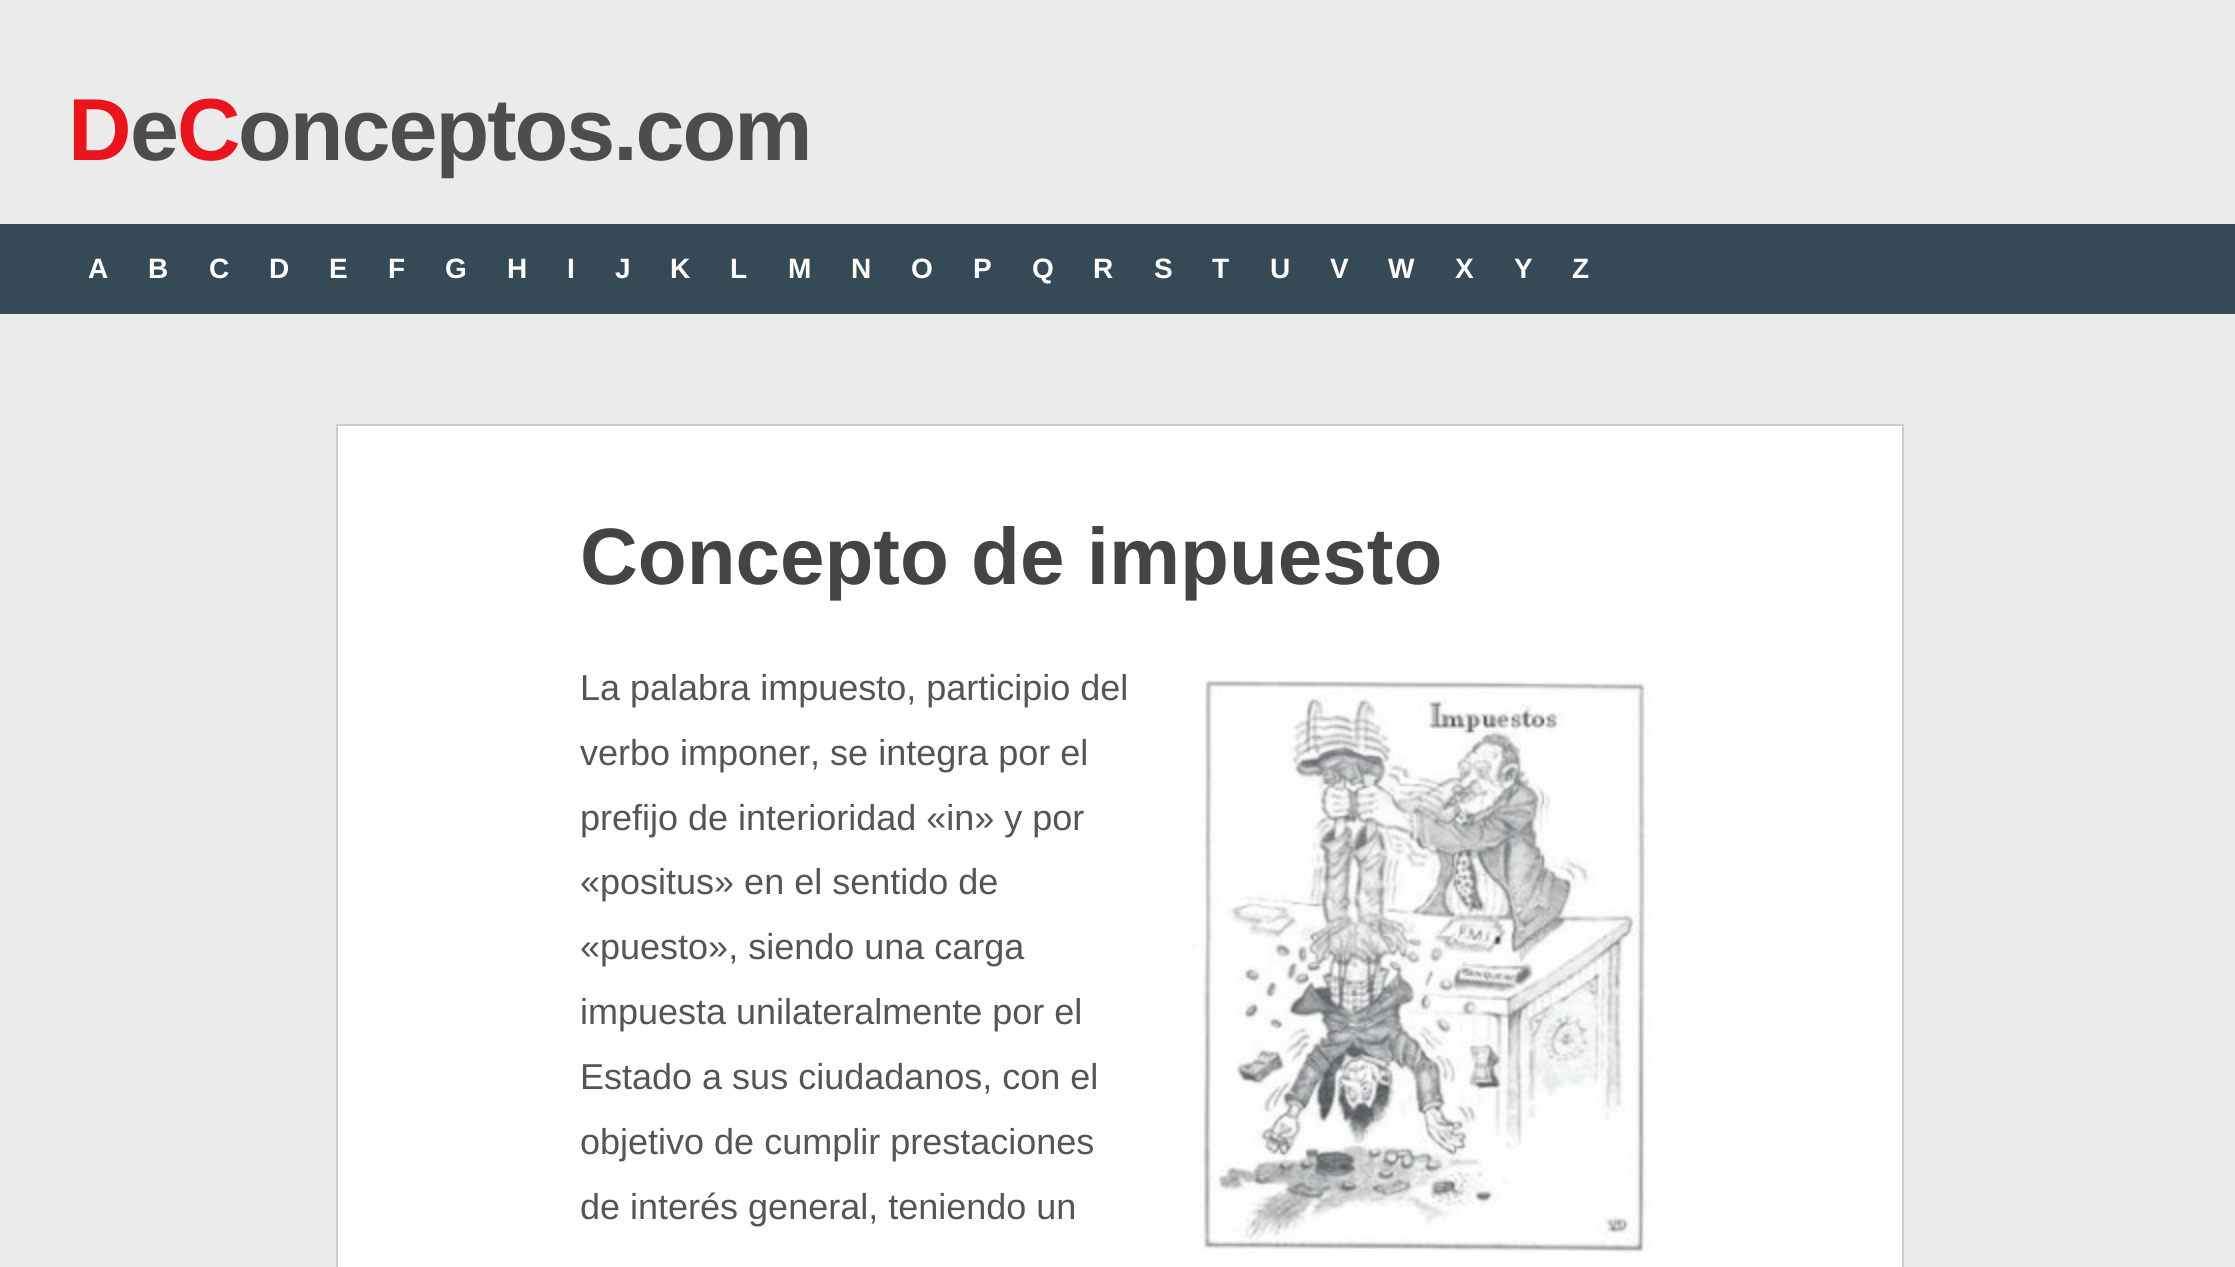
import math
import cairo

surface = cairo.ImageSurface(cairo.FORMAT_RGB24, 2235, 1267)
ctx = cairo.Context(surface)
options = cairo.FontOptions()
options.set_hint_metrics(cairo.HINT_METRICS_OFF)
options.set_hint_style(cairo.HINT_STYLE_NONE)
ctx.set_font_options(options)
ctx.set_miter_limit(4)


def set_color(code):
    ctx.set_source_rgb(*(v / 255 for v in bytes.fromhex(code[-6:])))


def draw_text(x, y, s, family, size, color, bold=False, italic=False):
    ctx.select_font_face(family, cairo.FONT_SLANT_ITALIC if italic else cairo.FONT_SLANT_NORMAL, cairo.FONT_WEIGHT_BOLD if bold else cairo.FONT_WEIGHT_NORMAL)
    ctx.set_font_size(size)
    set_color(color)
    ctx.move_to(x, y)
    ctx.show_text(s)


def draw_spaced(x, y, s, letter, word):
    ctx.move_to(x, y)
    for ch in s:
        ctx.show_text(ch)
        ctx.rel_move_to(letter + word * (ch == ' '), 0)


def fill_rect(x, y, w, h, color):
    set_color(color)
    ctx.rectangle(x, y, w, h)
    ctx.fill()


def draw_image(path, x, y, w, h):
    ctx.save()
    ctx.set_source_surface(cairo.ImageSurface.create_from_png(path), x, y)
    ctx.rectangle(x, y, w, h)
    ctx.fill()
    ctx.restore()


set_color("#ebebeb")
ctx.paint()
ctx.select_font_face("Liberation Sans", cairo.FONT_SLANT_NORMAL, cairo.FONT_WEIGHT_BOLD)
ctx.set_font_size(88)
set_color("#ea141f")
draw_spaced(68, 160, "D", -2, 0)
set_color("#4d4d4d")
draw_spaced(130, 160, "e", -2, 0)
set_color("#ea141f")
draw_spaced(177, 160, "C", -2, 0)
set_color("#4d4d4d")
draw_spaced(238, 160, "onceptos.com", -2, 0)
fill_rect(0, 224, 2235, 90, "#364956")
draw_text(88, 278, "A", "Liberation Sans", 28, "#ffffff", bold=True)
draw_text(148, 278, "B", "Liberation Sans", 28, "#ffffff", bold=True)
draw_text(209, 278, "C", "Liberation Sans", 28, "#ffffff", bold=True)
draw_text(269, 278, "D", "Liberation Sans", 28, "#ffffff", bold=True)
draw_text(329, 278, "E", "Liberation Sans", 28, "#ffffff", bold=True)
draw_text(388, 278, "F", "Liberation Sans", 28, "#ffffff", bold=True)
draw_text(445, 278, "G", "Liberation Sans", 28, "#ffffff", bold=True)
draw_text(507, 278, "H", "Liberation Sans", 28, "#ffffff", bold=True)
draw_text(567, 278, "I", "Liberation Sans", 28, "#ffffff", bold=True)
draw_text(615, 278, "J", "Liberation Sans", 28, "#ffffff", bold=True)
draw_text(670, 278, "K", "Liberation Sans", 28, "#ffffff", bold=True)
draw_text(730, 278, "L", "Liberation Sans", 28, "#ffffff", bold=True)
draw_text(788, 278, "M", "Liberation Sans", 28, "#ffffff", bold=True)
draw_text(851, 278, "N", "Liberation Sans", 28, "#ffffff", bold=True)
draw_text(911, 278, "O", "Liberation Sans", 28, "#ffffff", bold=True)
draw_text(973, 278, "P", "Liberation Sans", 28, "#ffffff", bold=True)
draw_text(1032, 278, "Q", "Liberation Sans", 28, "#ffffff", bold=True)
draw_text(1093, 278, "R", "Liberation Sans", 28, "#ffffff", bold=True)
draw_text(1154, 278, "S", "Liberation Sans", 28, "#ffffff", bold=True)
draw_text(1212, 278, "T", "Liberation Sans", 28, "#ffffff", bold=True)
draw_text(1270, 278, "U", "Liberation Sans", 28, "#ffffff", bold=True)
draw_text(1330, 278, "V", "Liberation Sans", 28, "#ffffff", bold=True)
draw_text(1388, 278, "W", "Liberation Sans", 28, "#ffffff", bold=True)
draw_text(1455, 278, "X", "Liberation Sans", 28, "#ffffff", bold=True)
draw_text(1514, 278, "Y", "Liberation Sans", 28, "#ffffff", bold=True)
draw_text(1572, 278, "Z", "Liberation Sans", 28, "#ffffff", bold=True)
ctx.rectangle(337, 425, 1566, 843)
set_color("#cccccc")
ctx.stroke()
fill_rect(338, 426, 1564, 841, "#ffffff")
draw_text(580, 584, "Concepto de impuesto", "Liberation Sans", 80, "#444444", bold=True)
draw_text(580, 700, "La palabra impuesto, participio del", "Liberation Sans", 36, "#555555")
draw_image("assets/img1.png", 1192, 680, 462, 573)
draw_text(580, 765, "verbo imponer, se integra por el", "Liberation Sans", 36, "#555555")
draw_text(580, 830, "prefijo de interioridad «in» y por", "Liberation Sans", 36, "#555555")
draw_text(580, 894, "«positus» en el sentido de", "Liberation Sans", 36, "#555555")
draw_text(580, 959, "«puesto», siendo una carga", "Liberation Sans", 36, "#555555")
draw_text(580, 1024, "impuesta unilateralmente por el", "Liberation Sans", 36, "#555555")
draw_text(580, 1089, "Estado a sus ciudadanos, con el", "Liberation Sans", 36, "#555555")
draw_text(580, 1154, "objetivo de cumplir prestaciones", "Liberation Sans", 36, "#555555")
draw_text(580, 1219, "de interés general, teniendo un", "Liberation Sans", 36, "#555555")
surface.write_to_png("output.png")
